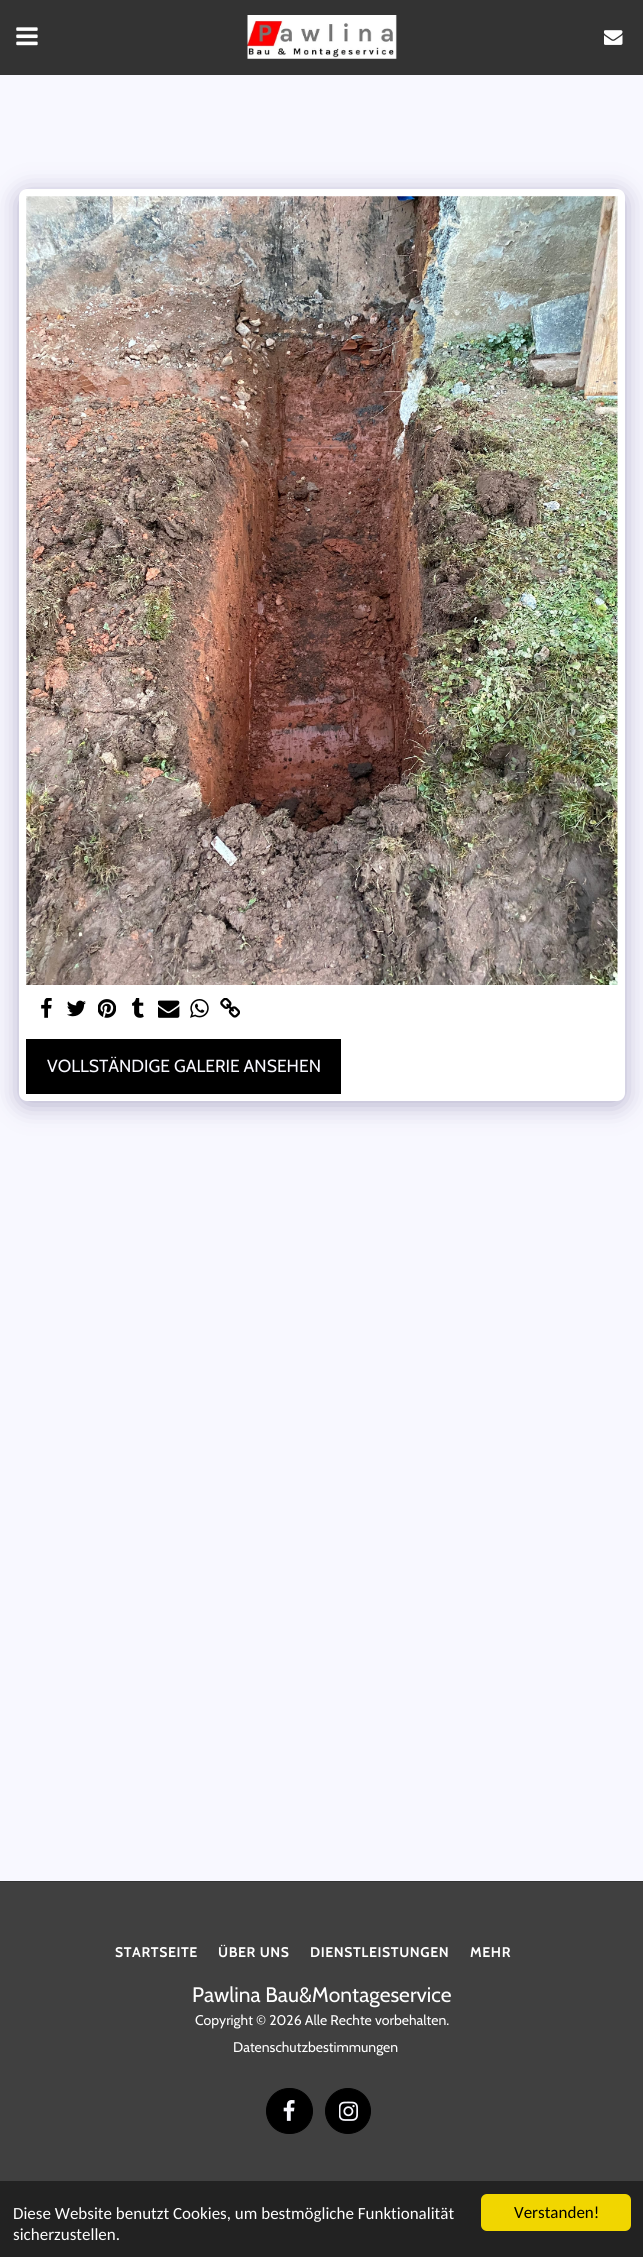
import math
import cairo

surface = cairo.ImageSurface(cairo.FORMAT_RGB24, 643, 2257)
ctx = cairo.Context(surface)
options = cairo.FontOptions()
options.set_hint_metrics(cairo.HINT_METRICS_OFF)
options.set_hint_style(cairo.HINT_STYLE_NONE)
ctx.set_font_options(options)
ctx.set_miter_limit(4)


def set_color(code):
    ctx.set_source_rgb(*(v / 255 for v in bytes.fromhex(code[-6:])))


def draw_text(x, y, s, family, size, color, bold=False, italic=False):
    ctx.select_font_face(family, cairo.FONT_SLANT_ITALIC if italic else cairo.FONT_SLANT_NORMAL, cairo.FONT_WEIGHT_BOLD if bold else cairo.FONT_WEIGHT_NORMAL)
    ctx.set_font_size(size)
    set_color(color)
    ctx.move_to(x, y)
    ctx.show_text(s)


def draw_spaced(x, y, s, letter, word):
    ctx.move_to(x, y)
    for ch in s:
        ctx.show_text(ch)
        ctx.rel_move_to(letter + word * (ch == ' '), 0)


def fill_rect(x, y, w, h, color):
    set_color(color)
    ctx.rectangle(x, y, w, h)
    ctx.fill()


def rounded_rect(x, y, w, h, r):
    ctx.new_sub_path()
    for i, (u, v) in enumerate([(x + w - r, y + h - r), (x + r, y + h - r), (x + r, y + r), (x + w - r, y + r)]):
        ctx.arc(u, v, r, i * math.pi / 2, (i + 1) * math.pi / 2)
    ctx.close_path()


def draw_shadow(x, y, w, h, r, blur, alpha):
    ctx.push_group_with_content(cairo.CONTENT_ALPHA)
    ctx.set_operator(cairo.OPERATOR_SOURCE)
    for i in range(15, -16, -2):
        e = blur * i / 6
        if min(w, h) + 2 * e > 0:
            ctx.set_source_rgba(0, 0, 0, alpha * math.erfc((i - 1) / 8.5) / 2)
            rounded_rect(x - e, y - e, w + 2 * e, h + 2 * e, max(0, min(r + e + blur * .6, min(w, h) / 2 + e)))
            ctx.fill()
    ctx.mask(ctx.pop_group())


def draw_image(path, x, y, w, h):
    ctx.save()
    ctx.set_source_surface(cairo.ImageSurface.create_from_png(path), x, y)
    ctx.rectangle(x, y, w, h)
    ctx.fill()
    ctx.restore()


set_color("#f8f8ff")
ctx.paint()
fill_rect(0, 0, 643, 75, "#333333")
draw_image("assets/img1.png", 16, 27, 22, 19)
draw_image("assets/img2.png", 247, 15, 150, 44)
draw_image("assets/img3.png", 604, 30, 19, 15)
set_color("#4d3f7a")
draw_shadow(19, 193, 606, 912, 8, 12.5, 0.4)
set_color("#ffffff")
rounded_rect(19, 189, 606, 912, 8)
ctx.fill()
draw_image("assets/img4.png", 26, 196, 592, 789)
draw_image("assets/img5.png", 41, 998, 11, 20)
draw_image("assets/img6.png", 67, 1000, 19, 17)
draw_image("assets/img7.png", 98, 999, 18, 19)
draw_image("assets/img8.png", 132, 998, 12, 20)
draw_image("assets/img9.png", 158, 1000, 22, 18)
draw_image("assets/img10.png", 190, 999, 19, 19)
draw_image("assets/img11.png", 220, 998, 20, 20)
fill_rect(26, 1039, 315, 55, "#000000")
draw_text(47, 1072, "VOLLSTÄNDIGE GALERIE ANSEHEN", "Cabin", 17.5, "#f8f8ff")
fill_rect(0, 1882, 643, 299, "#404040")
fill_rect(0, 1881, 643, 1, "#333333")
ctx.select_font_face("Cabin", cairo.FONT_SLANT_NORMAL, cairo.FONT_WEIGHT_BOLD)
ctx.set_font_size(14)
set_color("#ffffff")
draw_spaced(115, 1957, "STARTSEITE", 0.6, 0)
draw_spaced(218, 1957, "ÜBER UNS", 0.6, 0)
draw_spaced(310, 1957, "DIENSTLEISTUNGEN", 0.6, 0)
draw_spaced(470, 1957, "MEHR", 0.6, 0)
draw_text(192, 2002, "Pawlina Bau&Montageservice", "Cabin", 21, "#ffffff")
draw_text(195, 2025, "Copyright © 2026 Alle Rechte vorbehalten.", "Cabin", 14, "#ffffff")
draw_text(233, 2052, "Datenschutzbestimmungen", "Cabin", 14, "#ffffff")
set_color("#000000")
rounded_rect(266.5, 2088.5, 46, 45, 22.5)
ctx.fill_preserve()
ctx.set_line_width(1)
ctx.stroke()
draw_image("assets/img12.png", 283, 2100, 12, 21)
ctx.arc(348, 2111, 22.5, 0, 2 * math.pi)
ctx.fill_preserve()
ctx.stroke()
draw_image("assets/img13.png", 339, 2101, 19, 20)
fill_rect(0, 2181, 643, 76, "#222222")
draw_text(13, 2219, "Diese Website benutzt Cookies, um bestmögliche Funktionalität", "Carlito", 17, "#ffffff")
draw_text(13, 2240, "sicherzustellen.", "Carlito", 17, "#ffffff")
set_color("#f1d600")
rounded_rect(481, 2194, 150, 37, 6)
ctx.fill()
draw_text(514, 2218, "Verstanden!", "Carlito", 17, "#000000")
surface.write_to_png("output.png")
